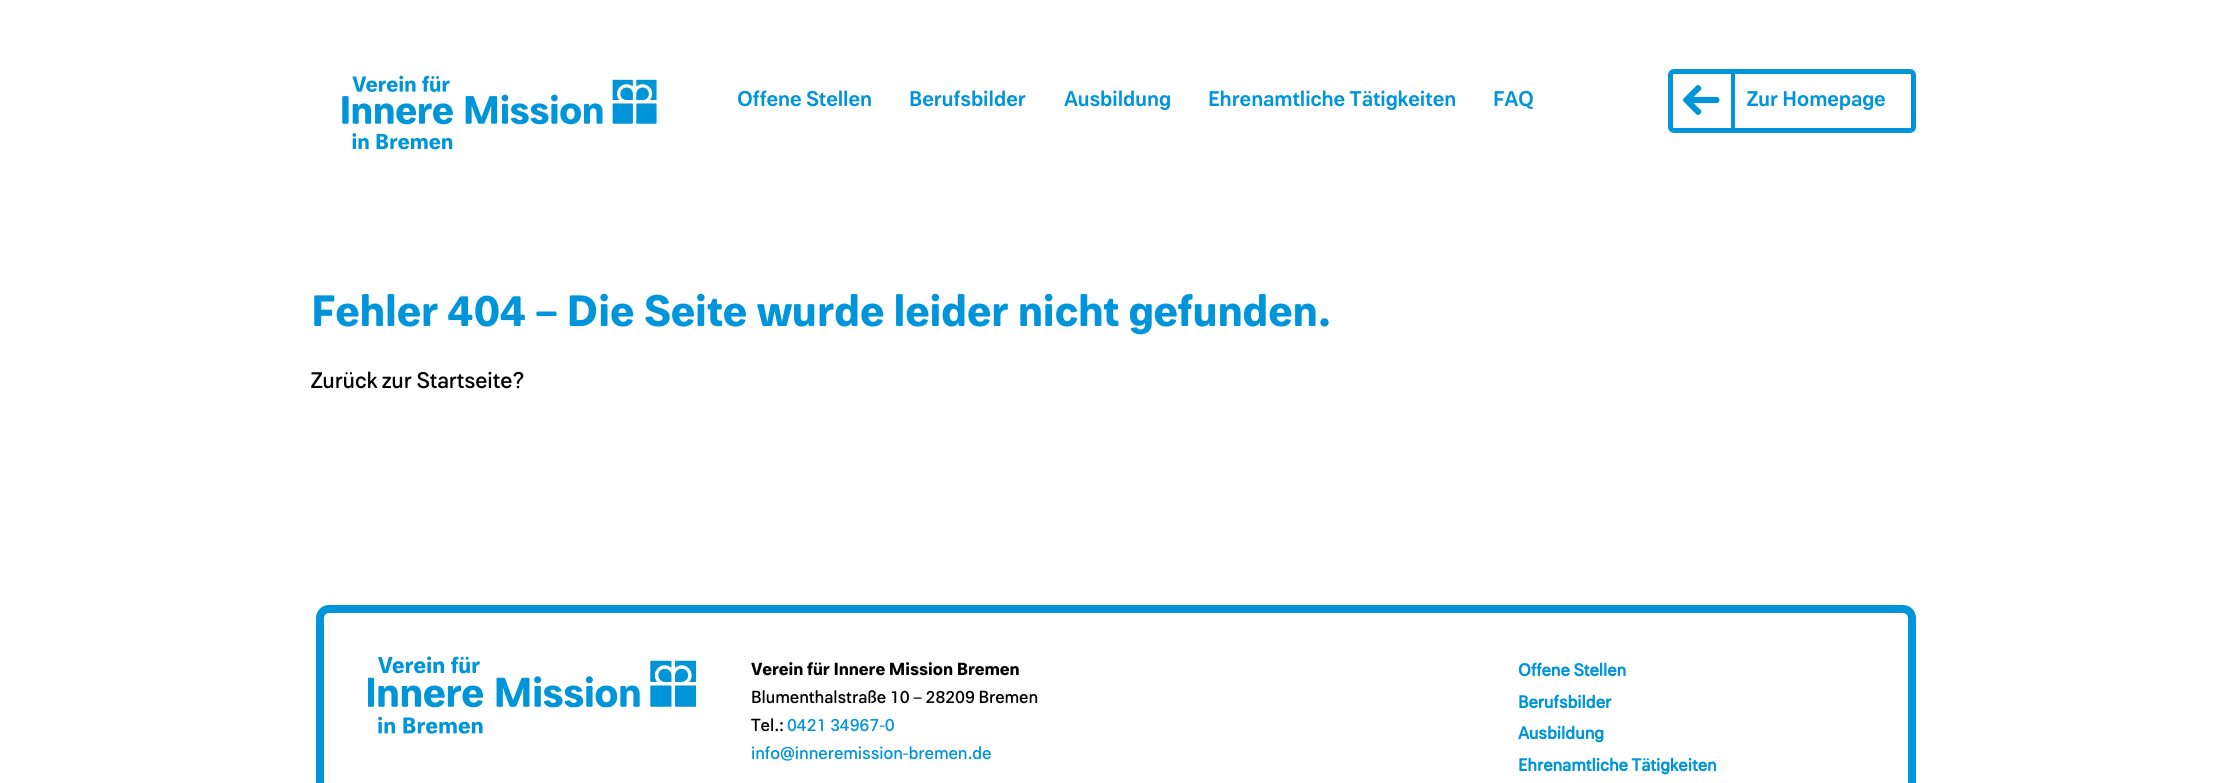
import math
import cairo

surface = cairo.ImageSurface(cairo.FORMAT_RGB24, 2231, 783)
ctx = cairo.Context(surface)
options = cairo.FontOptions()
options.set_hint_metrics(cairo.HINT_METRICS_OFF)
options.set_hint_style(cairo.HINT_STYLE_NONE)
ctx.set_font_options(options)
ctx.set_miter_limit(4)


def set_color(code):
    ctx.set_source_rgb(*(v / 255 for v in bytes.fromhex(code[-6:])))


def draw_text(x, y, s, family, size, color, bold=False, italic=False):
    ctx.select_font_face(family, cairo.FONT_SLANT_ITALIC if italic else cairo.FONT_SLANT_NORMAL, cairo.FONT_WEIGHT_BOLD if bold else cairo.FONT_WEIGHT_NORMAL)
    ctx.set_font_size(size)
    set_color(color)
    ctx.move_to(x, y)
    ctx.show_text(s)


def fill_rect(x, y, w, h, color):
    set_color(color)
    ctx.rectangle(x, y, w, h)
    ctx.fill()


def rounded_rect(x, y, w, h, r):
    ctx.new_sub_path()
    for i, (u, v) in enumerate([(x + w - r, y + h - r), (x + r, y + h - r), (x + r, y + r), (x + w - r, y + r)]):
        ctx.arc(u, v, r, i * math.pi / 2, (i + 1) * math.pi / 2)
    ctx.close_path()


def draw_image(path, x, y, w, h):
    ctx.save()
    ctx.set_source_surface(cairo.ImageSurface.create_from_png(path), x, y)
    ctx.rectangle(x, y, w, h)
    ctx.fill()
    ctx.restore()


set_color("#ffffff")
ctx.paint()
draw_image("assets/img1.png", 342, 75, 315, 75)
draw_text(737, 106, "Offene Stellen", "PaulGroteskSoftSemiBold", 21.25, "#0095db")
draw_text(909, 106, "Berufsbilder", "PaulGroteskSoftSemiBold", 21.25, "#0095db")
draw_text(1064, 106, "Ausbildung", "PaulGroteskSoftSemiBold", 21.25, "#0095db")
draw_text(1208, 106, "Ehrenamtliche Tätigkeiten", "PaulGroteskSoftSemiBold", 21.25, "#0095db")
draw_text(1493, 106, "FAQ", "PaulGroteskSoftSemiBold", 21.25, "#0095db")
rounded_rect(1670.5, 71.5, 243, 59, 3.5)
ctx.set_line_width(5)
ctx.stroke()
draw_image("assets/img2.png", 1683, 85, 37, 30)
fill_rect(1731, 74, 4, 54, "#0095db")
draw_text(1747, 106, "Zur Homepage", "PaulGroteskSoftSemiBold", 21.25, "#0095db")
draw_text(311, 326, "Fehler 404 – Die Seite wurde leider nicht gefunden.", "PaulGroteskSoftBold", 43.75, "#0095db")
draw_text(311, 388, "Zurück zur Startseite?", "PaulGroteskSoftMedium", 22.5, "#000000")
rounded_rect(320, 609, 1592, 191, 9)
set_color("#0095db")
ctx.set_line_width(8)
ctx.stroke()
draw_image("assets/img3.png", 368, 656, 328, 78)
draw_text(751, 675, "Verein für Innere Mission Bremen", "PaulGroteskSoftBold", 17.5, "#000000")
draw_text(751, 703, "Blumenthalstraße 10 – 28209 Bremen", "PaulGroteskSoftMedium", 17.5, "#000000")
draw_text(751, 731, "Tel.:", "PaulGroteskSoftMedium", 17.5, "#000000")
draw_text(787, 731, "0421 34967-0", "PaulGroteskSoftMedium", 17.5, "#0095db")
draw_text(751, 759, "info@inneremission-bremen.de", "PaulGroteskSoftMedium", 17.5, "#0095db")
draw_text(1518, 676, "Offene Stellen", "PaulGroteskSoftMedium", 17.5, "#0095db", bold=True)
draw_text(1518, 708, "Berufsbilder", "PaulGroteskSoftMedium", 17.5, "#0095db", bold=True)
draw_text(1518, 739, "Ausbildung", "PaulGroteskSoftMedium", 17.5, "#0095db", bold=True)
draw_text(1518, 771, "Ehrenamtliche Tätigkeiten", "PaulGroteskSoftMedium", 17.5, "#0095db", bold=True)
surface.write_to_png("output.png")
